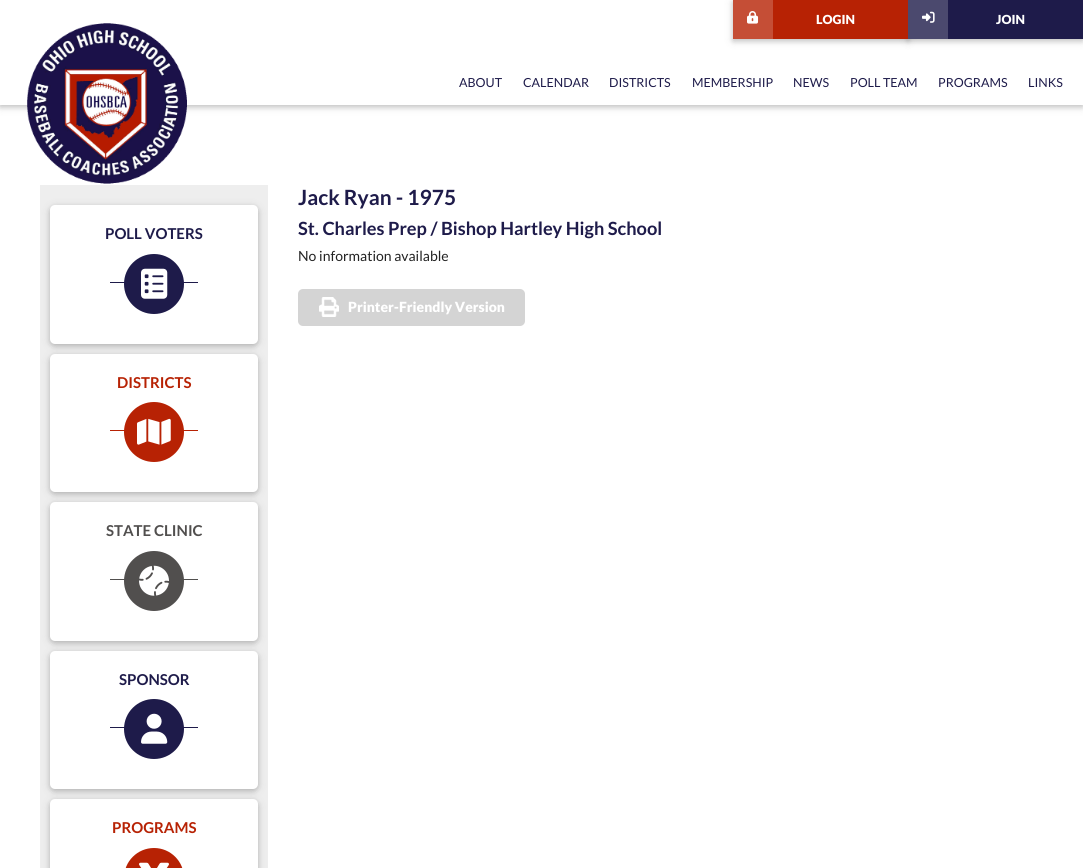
import math
import cairo

surface = cairo.ImageSurface(cairo.FORMAT_RGB24, 1083, 868)
ctx = cairo.Context(surface)
options = cairo.FontOptions()
options.set_hint_metrics(cairo.HINT_METRICS_OFF)
options.set_hint_style(cairo.HINT_STYLE_NONE)
ctx.set_font_options(options)
ctx.set_miter_limit(4)


def set_color(code):
    ctx.set_source_rgb(*(v / 255 for v in bytes.fromhex(code[-6:])))


def draw_text(x, y, s, family, size, color, bold=False, italic=False):
    ctx.select_font_face(family, cairo.FONT_SLANT_ITALIC if italic else cairo.FONT_SLANT_NORMAL, cairo.FONT_WEIGHT_BOLD if bold else cairo.FONT_WEIGHT_NORMAL)
    ctx.set_font_size(size)
    set_color(color)
    ctx.move_to(x, y)
    ctx.show_text(s)


def fill_rect(x, y, w, h, color):
    set_color(color)
    ctx.rectangle(x, y, w, h)
    ctx.fill()


def rounded_rect(x, y, w, h, r):
    ctx.new_sub_path()
    for i, (u, v) in enumerate([(x + w - r, y + h - r), (x + r, y + h - r), (x + r, y + r), (x + w - r, y + r)]):
        ctx.arc(u, v, r, i * math.pi / 2, (i + 1) * math.pi / 2)
    ctx.close_path()


def draw_shadow(x, y, w, h, r, blur, alpha):
    ctx.push_group_with_content(cairo.CONTENT_ALPHA)
    ctx.set_operator(cairo.OPERATOR_SOURCE)
    for i in range(15, -16, -2):
        e = blur * i / 6
        if min(w, h) + 2 * e > 0:
            ctx.set_source_rgba(0, 0, 0, alpha * math.erfc((i - 1) / 8.5) / 2)
            rounded_rect(x - e, y - e, w + 2 * e, h + 2 * e, max(0, min(r + e + blur * .6, min(w, h) / 2 + e)))
            ctx.fill()
    ctx.mask(ctx.pop_group())


def draw_image(path, x, y, w, h):
    ctx.save()
    ctx.set_source_surface(cairo.ImageSurface.create_from_png(path), x, y)
    ctx.rectangle(x, y, w, h)
    ctx.fill()
    ctx.restore()


set_color("#ffffff")
ctx.paint()
set_color("#000000")
draw_shadow(0, 2, 1083, 105, 0, 5, 0.12)
draw_shadow(0, 2, 1083, 105, 0, 2.5, 0.16)
fill_rect(0, 0, 1083, 105, "#ffffff")
set_color("#000000")
draw_shadow(733, 2, 175, 39, 0, 5, 0.12)
draw_shadow(733, 2, 175, 39, 0, 2.5, 0.16)
draw_shadow(908, 2, 175, 39, 0, 5, 0.12)
draw_shadow(908, 2, 175, 39, 0, 2.5, 0.16)
fill_rect(773, 0, 135, 39, "#b72204")
fill_rect(733, 0, 40, 39, "#c54e36")
draw_image("assets/img1.png", 747, 11, 12, 13)
draw_text(816, 24, "LOGIN", "Lato Black", 12.5, "#ffffff")
fill_rect(948, 0, 135, 39, "#1e1b4a")
fill_rect(908, 0, 40, 39, "#4b496e")
draw_image("assets/img2.png", 922, 11, 13, 12)
draw_text(996, 24, "JOIN", "Lato Black", 12.5, "#ffffff")
draw_image("assets/img3.png", 27, 23, 160, 161)
draw_text(459, 87, "ABOUT", "Lato", 12.5, "#1e1b4a")
draw_text(523, 87, "CALENDAR", "Lato", 12.5, "#1e1b4a")
draw_text(609, 87, "DISTRICTS", "Lato", 12.5, "#1e1b4a")
draw_text(692, 87, "MEMBERSHIP", "Lato", 12.5, "#1e1b4a")
draw_text(793, 87, "NEWS", "Lato", 12.5, "#1e1b4a")
draw_text(850, 87, "POLL TEAM", "Lato", 12.5, "#1e1b4a")
draw_text(938, 87, "PROGRAMS", "Lato", 12.5, "#1e1b4a")
draw_text(1028, 87, "LINKS", "Lato", 12.5, "#1e1b4a")
fill_rect(40, 185, 228, 683, "#eeeeee")
set_color("#000000")
draw_shadow(50, 207, 208, 139, 5, 5, 0.12)
draw_shadow(50, 207, 208, 139, 5, 2.5, 0.16)
set_color("#ffffff")
rounded_rect(50, 205, 208, 139, 5)
ctx.fill()
draw_text(105, 239, "POLL VOTERS", "Lato", 15, "#1e1b4a", bold=True)
fill_rect(110, 282, 88, 1, "#1e1b4a")
ctx.new_path()
ctx.arc(154, 284, 30, 0, 2 * math.pi)
ctx.fill()
draw_image("assets/img4.png", 141, 268, 27, 31)
set_color("#000000")
draw_shadow(50, 356, 208, 138, 5, 5, 0.12)
draw_shadow(50, 356, 208, 138, 5, 2.5, 0.16)
set_color("#ffffff")
rounded_rect(50, 354, 208, 138, 5)
ctx.fill()
draw_text(117, 388, "DISTRICTS", "Lato", 15, "#b72204", bold=True)
fill_rect(110, 430, 88, 1, "#b72204")
ctx.new_path()
ctx.arc(154, 432, 30, 0, 2 * math.pi)
ctx.fill()
draw_image("assets/img5.png", 137, 418, 34, 27)
set_color("#000000")
draw_shadow(50, 504, 208, 139, 5, 5, 0.12)
draw_shadow(50, 504, 208, 139, 5, 2.5, 0.16)
set_color("#ffffff")
rounded_rect(50, 502, 208, 139, 5)
ctx.fill()
draw_text(106, 536, "STATE CLINIC", "Lato", 15, "#514f4e", bold=True)
fill_rect(110, 579, 88, 1, "#514f4e")
ctx.new_path()
ctx.arc(154, 581, 30, 0, 2 * math.pi)
ctx.fill()
draw_image("assets/img6.png", 139, 565, 30, 31)
set_color("#000000")
draw_shadow(50, 653, 208, 138, 5, 5, 0.12)
draw_shadow(50, 653, 208, 138, 5, 2.5, 0.16)
set_color("#ffffff")
rounded_rect(50, 651, 208, 138, 5)
ctx.fill()
draw_text(119, 685, "SPONSOR", "Lato", 15, "#1e1b4a", bold=True)
fill_rect(110, 727, 88, 1, "#1e1b4a")
ctx.new_path()
ctx.arc(154, 729, 30, 0, 2 * math.pi)
ctx.fill()
draw_image("assets/img7.png", 141, 713, 27, 31)
set_color("#000000")
draw_shadow(50, 801, 208, 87, 5, 5, 0.12)
draw_shadow(50, 801, 208, 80, 5, 2.5, 0.16)
set_color("#ffffff")
rounded_rect(50, 799, 208, 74, 5)
ctx.fill()
draw_text(112, 833, "PROGRAMS", "Lato", 15, "#b72204", bold=True)
rounded_rect(124, 848, 60, 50, 30)
ctx.fill()
draw_image("assets/img8.png", 139, 862, 30, 6)
draw_text(298, 205, "Jack Ryan - 1975", "Lato", 21, "#1e1b4a", bold=True)
draw_text(298, 235, "St. Charles Prep / Bishop Hartley High School", "Lato", 18.2, "#1e1b4a", bold=True)
draw_text(298, 261, "No information available", "Lato", 14, "#222222")
set_color("#d4d4d4")
rounded_rect(298, 289, 227, 37, 5)
ctx.fill()
draw_image("assets/img9.png", 319, 297, 20, 20)
draw_text(348, 312, "Printer-Friendly Version", "Lato Black", 14, "#ffffff")
surface.write_to_png("output.png")
